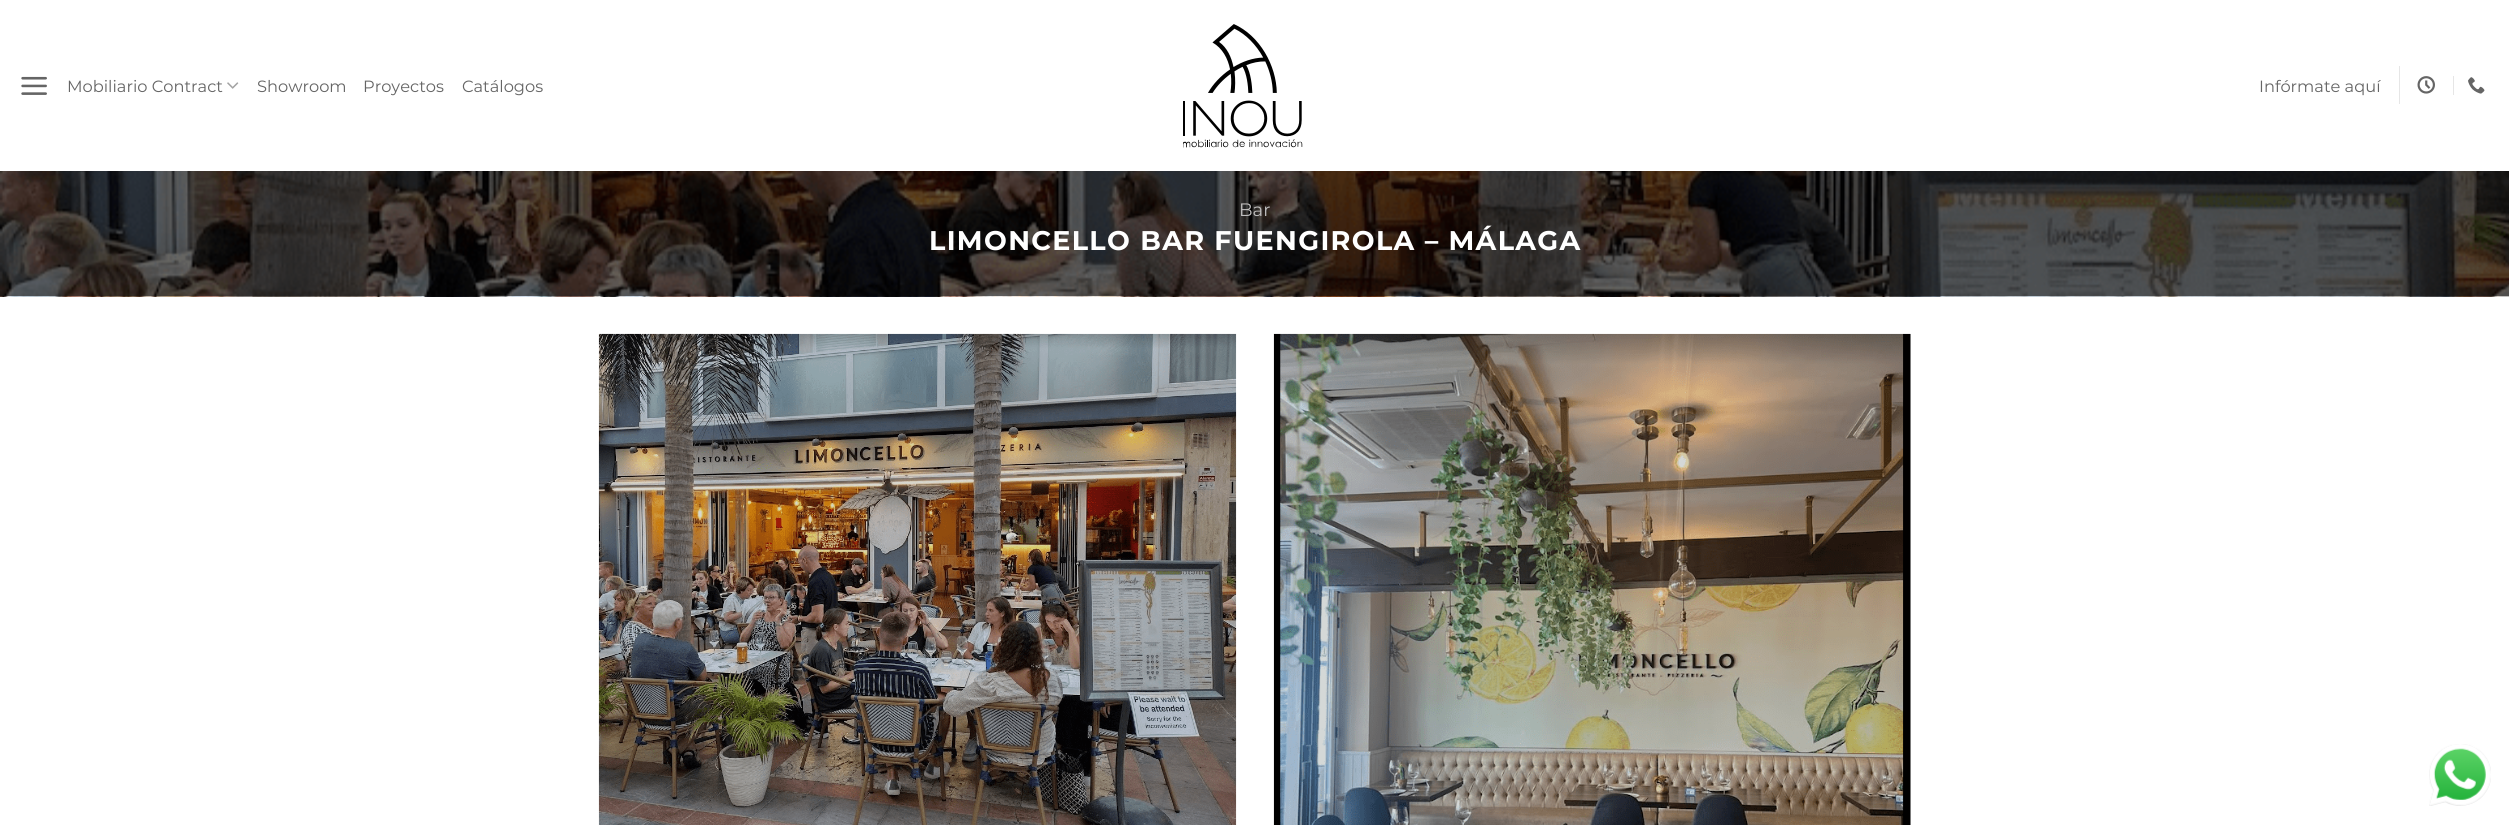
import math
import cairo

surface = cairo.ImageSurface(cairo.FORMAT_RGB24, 2509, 825)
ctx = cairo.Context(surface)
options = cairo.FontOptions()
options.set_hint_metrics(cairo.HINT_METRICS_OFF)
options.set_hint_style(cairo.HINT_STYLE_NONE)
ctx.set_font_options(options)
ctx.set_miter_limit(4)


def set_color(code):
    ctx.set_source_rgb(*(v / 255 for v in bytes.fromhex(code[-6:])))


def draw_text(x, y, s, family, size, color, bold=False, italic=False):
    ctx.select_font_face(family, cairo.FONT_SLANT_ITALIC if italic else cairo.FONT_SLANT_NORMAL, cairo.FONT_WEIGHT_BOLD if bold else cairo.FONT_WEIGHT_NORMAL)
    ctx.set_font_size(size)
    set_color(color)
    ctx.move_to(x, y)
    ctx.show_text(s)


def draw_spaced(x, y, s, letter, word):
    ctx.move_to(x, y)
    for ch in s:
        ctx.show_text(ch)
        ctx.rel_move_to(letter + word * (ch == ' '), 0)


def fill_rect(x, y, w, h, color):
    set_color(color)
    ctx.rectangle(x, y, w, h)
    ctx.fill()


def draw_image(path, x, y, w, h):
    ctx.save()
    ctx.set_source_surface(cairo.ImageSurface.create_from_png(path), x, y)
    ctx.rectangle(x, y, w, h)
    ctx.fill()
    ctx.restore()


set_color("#ffffff")
ctx.paint()
fill_rect(1910, 334, 1, 491, "#d9d9d9")
draw_image("assets/img1.png", 21, 76, 26, 19)
draw_text(67, 92, "Mobiliario Contract", "Montserrat", 16.25, "#656565")
draw_image("assets/img2.png", 227, 82, 12, 7)
draw_text(257, 92, "Showroom", "Montserrat", 16.25, "#656565")
draw_text(363, 92, "Proyectos", "Montserrat", 16.25, "#656565")
draw_text(462, 92, "Catálogos", "Montserrat", 16.25, "#656565")
draw_image("assets/img3.png", 1183, 24, 120, 124)
draw_text(2259, 92, "Infórmate aquí", "Montserrat", 16.25, "#656565")
fill_rect(2399, 66, 1, 38, "#e6e6e6")
draw_image("assets/img4.png", 2417, 76, 18, 18)
fill_rect(2453, 76, 1, 19, "#e6e6e6")
draw_image("assets/img5.png", 2468, 77, 17, 17)
draw_image("assets/img6.png", 0, 171, 2509, 126)
draw_text(1239, 216, "Bar", "Montserrat", 18, "#bfbebe")
ctx.select_font_face("Montserrat", cairo.FONT_SLANT_NORMAL, cairo.FONT_WEIGHT_BOLD)
ctx.set_font_size(27)
set_color("#ffffff")
draw_spaced(929, 250, "LIMONCELLO BAR FUENGIROLA – MÁLAGA", 1.35, 0)
draw_image("assets/img7.png", 598, 333, 639, 492)
draw_image("assets/img8.png", 1273, 333, 638, 492)
draw_image("assets/img9.png", 2429, 744, 62, 62)
surface.write_to_png("output.png")
